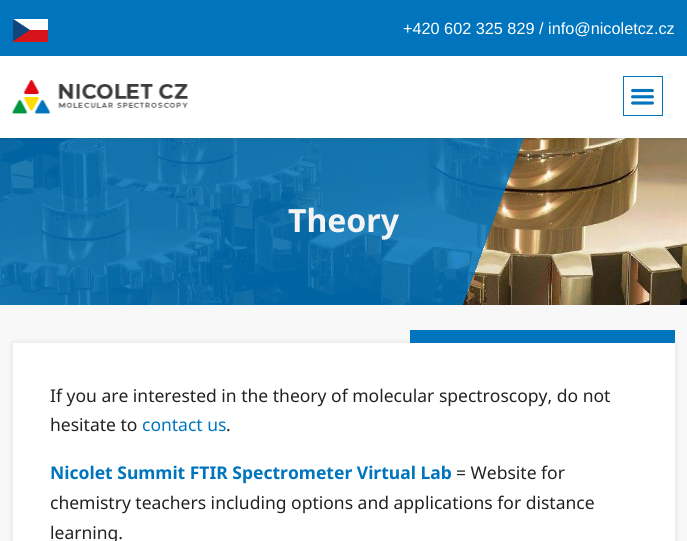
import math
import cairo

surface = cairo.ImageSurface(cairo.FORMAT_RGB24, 687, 541)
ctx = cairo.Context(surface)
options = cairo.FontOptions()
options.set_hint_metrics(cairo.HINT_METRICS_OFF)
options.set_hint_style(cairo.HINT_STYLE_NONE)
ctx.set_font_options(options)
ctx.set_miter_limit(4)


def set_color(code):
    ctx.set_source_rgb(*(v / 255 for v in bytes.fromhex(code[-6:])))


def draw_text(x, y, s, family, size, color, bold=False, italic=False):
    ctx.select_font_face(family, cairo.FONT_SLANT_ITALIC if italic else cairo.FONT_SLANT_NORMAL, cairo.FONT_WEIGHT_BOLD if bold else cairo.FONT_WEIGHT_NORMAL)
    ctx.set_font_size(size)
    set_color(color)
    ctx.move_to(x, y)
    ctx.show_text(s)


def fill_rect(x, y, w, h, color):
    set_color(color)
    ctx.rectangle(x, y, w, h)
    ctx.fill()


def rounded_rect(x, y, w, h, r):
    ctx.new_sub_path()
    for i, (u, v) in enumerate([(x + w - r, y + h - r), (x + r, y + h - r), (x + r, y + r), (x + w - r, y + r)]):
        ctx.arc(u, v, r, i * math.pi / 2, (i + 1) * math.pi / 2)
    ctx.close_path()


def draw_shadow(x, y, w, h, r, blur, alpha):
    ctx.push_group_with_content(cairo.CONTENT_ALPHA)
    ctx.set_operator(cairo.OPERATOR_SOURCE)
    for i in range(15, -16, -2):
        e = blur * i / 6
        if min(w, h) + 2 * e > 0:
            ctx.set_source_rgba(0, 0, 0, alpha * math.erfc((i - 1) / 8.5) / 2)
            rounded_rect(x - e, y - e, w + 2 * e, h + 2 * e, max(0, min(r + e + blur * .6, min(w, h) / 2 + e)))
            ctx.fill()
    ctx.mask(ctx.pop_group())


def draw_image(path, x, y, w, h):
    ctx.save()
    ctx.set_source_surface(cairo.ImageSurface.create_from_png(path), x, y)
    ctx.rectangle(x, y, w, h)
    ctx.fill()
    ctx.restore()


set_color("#ffffff")
ctx.paint()
draw_image("assets/img3.png", 0, 138, 687, 167)
set_color("#000000")
draw_shadow(0, 0, 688, 138, 0, 3, 0.1)
fill_rect(0, 56, 687, 82, "#ffffff")
fill_rect(0, 0, 687, 56, "#0075be")
fill_rect(13, 30, 35, 12, "#d7141a")
fill_rect(13, 19, 35, 11, "#ffffff")
ctx.save()
ctx.rectangle(13, 13, 35, 35)
ctx.clip()
set_color("#11457e")
ctx.new_path()
ctx.move_to(30, 30)
ctx.line_to(12.5, 18.5)
ctx.line_to(12.5, 41.5)
ctx.close_path()
ctx.fill()
ctx.restore()
draw_text(403, 34, "+420 602 325 829 / info@nicoletcz.cz", "Liberation Sans", 16.25, "#ffffff")
draw_image("assets/img1.png", 12, 80, 176, 34)
ctx.rectangle(623.5, 76.5, 39, 39)
set_color("#0075be")
ctx.set_line_width(1)
ctx.stroke()
draw_image("assets/img2.png", 631, 88, 23, 17)
draw_text(288, 232, "Theory", "Noto Sans", 32, "#f4f4f4", bold=True)
fill_rect(0, 305, 687, 236, "#f8f8f8")
set_color("#000000")
draw_shadow(13, 343, 662, 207, 0, 3, 0.1)
fill_rect(13, 343, 662, 198, "#ffffff")
fill_rect(410, 330, 265, 13, "#0075be")
draw_text(50, 402, "If you are interested in the theory of molecular spectroscopy, do not", "Noto Sans", 17.5, "#222222")
draw_text(50, 431, "hesitate to", "Noto Sans", 17.5, "#222222")
draw_text(142, 431, "contact us", "Noto Sans", 17.5, "#0075be")
draw_text(226, 431, ".", "Noto Sans", 17.5, "#222222")
draw_text(50, 479, "Nicolet Summit FTIR Spectrometer Virtual Lab", "Noto Sans", 17.5, "#0075be", bold=True)
draw_text(456, 479, "= Website for", "Noto Sans", 17.5, "#222222")
draw_text(50, 509, "chemistry teachers including options and applications for distance", "Noto Sans", 17.5, "#222222")
draw_text(50, 539, "learning.", "Noto Sans", 17.5, "#222222")
surface.write_to_png("output.png")
